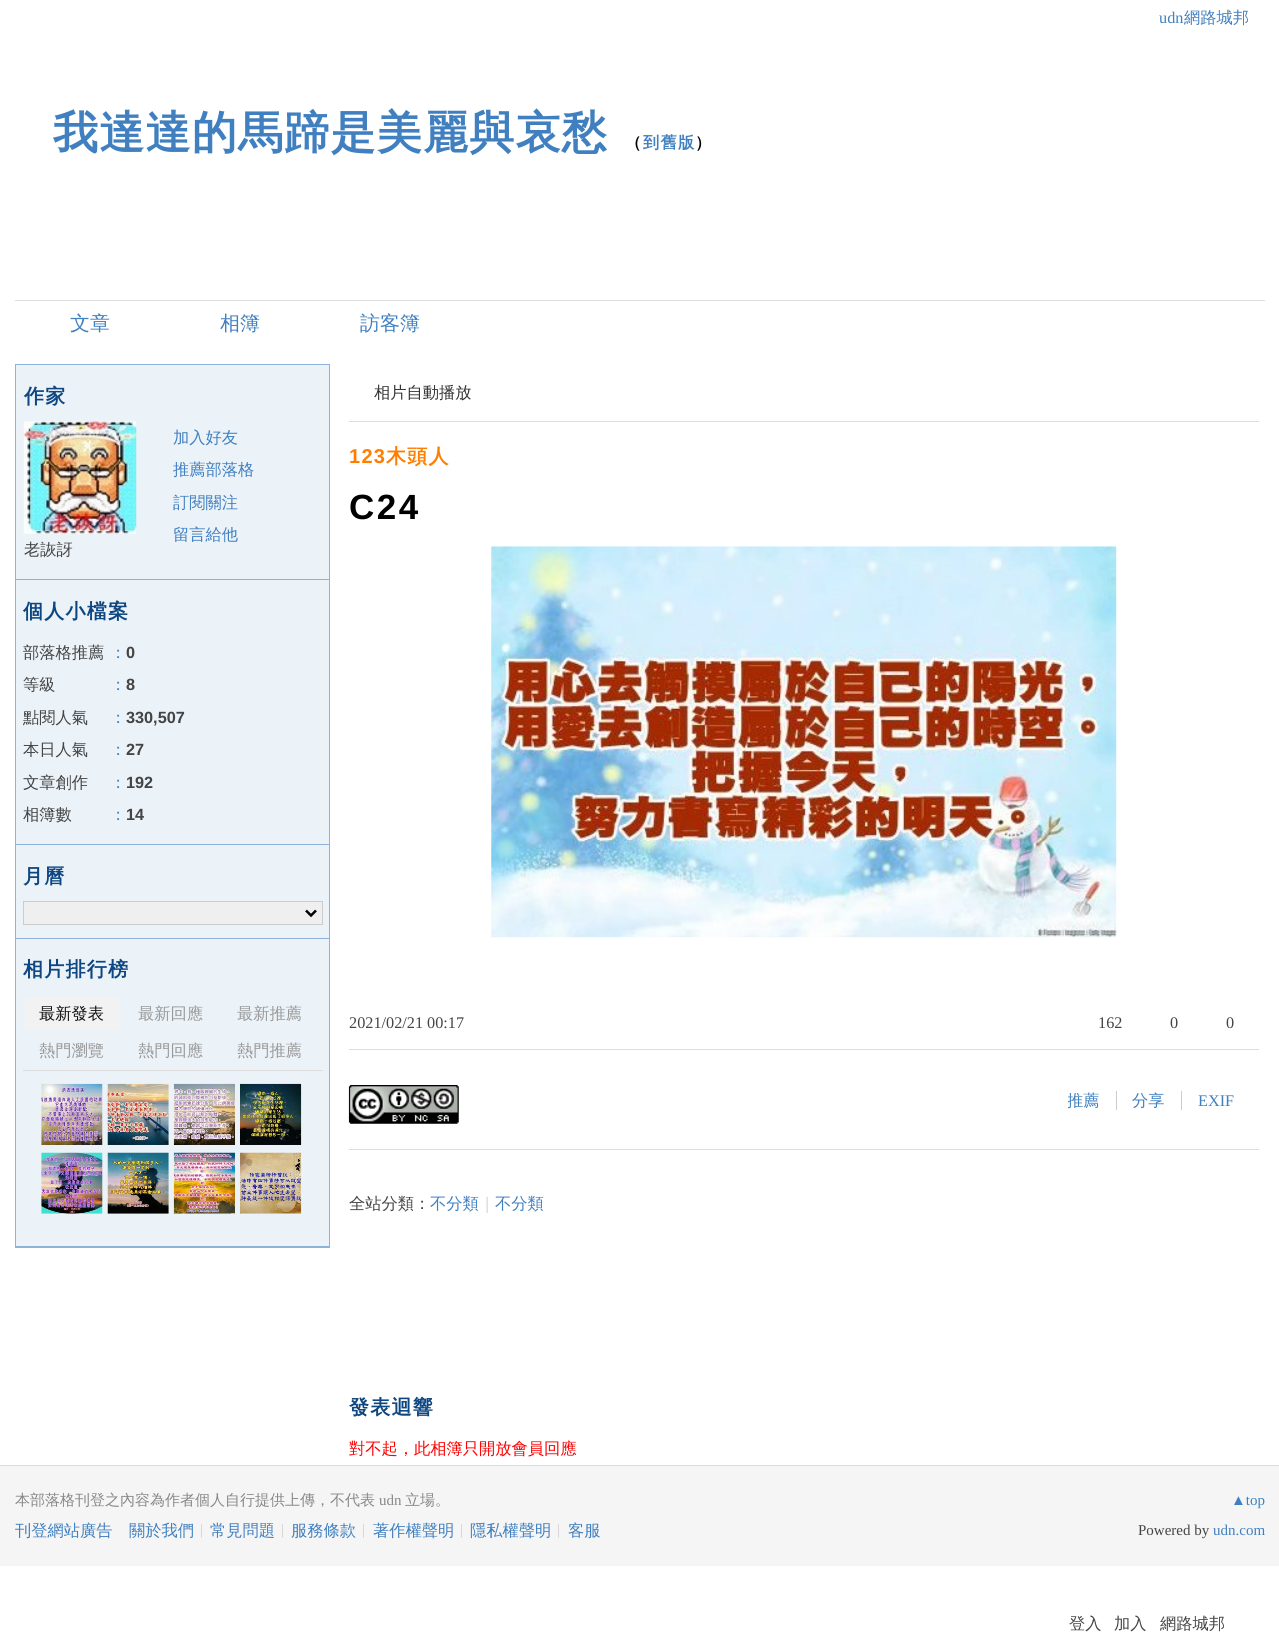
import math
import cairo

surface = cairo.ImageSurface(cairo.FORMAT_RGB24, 1279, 1642)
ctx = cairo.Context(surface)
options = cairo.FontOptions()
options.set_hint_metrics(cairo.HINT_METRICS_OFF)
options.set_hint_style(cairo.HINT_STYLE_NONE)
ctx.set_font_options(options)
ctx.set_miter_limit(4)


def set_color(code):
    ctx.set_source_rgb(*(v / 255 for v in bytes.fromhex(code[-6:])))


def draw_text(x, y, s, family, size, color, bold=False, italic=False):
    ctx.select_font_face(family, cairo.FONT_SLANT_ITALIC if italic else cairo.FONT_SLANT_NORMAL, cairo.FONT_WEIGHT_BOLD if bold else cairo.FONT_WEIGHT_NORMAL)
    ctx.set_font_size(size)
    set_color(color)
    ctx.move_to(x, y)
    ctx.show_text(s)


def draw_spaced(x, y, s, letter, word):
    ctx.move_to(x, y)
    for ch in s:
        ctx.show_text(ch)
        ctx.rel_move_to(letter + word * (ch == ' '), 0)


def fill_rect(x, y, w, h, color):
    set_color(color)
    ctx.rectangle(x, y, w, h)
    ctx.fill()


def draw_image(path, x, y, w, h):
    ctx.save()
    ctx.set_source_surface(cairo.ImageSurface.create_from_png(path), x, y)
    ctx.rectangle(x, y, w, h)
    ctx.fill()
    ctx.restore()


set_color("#ffffff")
ctx.paint()
draw_text(1159, 23, "udn", "Liberation Serif", 16.25, "#4180c0")
draw_text(1184, 23, "網路城邦", "WenQuanYi Zen Hei Medium", 16.25, "#4180c0")
fill_rect(15, 300, 1250, 1, "#dddddd")
ctx.select_font_face("WenQuanYi Zen Hei", cairo.FONT_SLANT_NORMAL, cairo.FONT_WEIGHT_BOLD)
ctx.set_font_size(45)
set_color("#4180c0")
draw_spaced(53, 148, "我達達的馬蹄是美麗與哀愁", 1.25, 0)
ctx.set_font_size(16.25)
set_color("#000000")
draw_spaced(625, 148, "（", 1.25, 0)
set_color("#4180c0")
draw_spaced(643, 148, "到舊版", 1.25, 0)
set_color("#000000")
draw_spaced(695, 148, "）", 1.25, 0)
draw_text(70, 330, "文章", "WenQuanYi Zen Hei Medium", 20, "#4180c0")
draw_text(220, 330, "相簿", "WenQuanYi Zen Hei Medium", 20, "#4180c0")
draw_text(360, 330, "訪客簿", "WenQuanYi Zen Hei Medium", 20, "#4180c0")
fill_rect(15, 364, 315, 884, "#8db3d9")
fill_rect(16, 365, 313, 214, "#ebf2f8")
ctx.select_font_face("WenQuanYi Zen Hei", cairo.FONT_SLANT_NORMAL, cairo.FONT_WEIGHT_BOLD)
set_color("#0d4680")
draw_spaced(24, 403, "作家", 1.25, 0)
draw_text(173, 443, "加入好友", "WenQuanYi Zen Hei Medium", 16.25, "#4180c0")
draw_text(173, 475, "推薦部落格", "WenQuanYi Zen Hei Medium", 16.25, "#4180c0")
draw_text(173, 508, "訂閱關注", "WenQuanYi Zen Hei Medium", 16.25, "#4180c0")
draw_text(173, 540, "留言給他", "WenQuanYi Zen Hei Medium", 16.25, "#4180c0")
draw_image("assets/img1.png", 23, 421, 114, 113)
draw_text(24, 555, "老詼訝", "WenQuanYi Zen Hei Medium", 16.25, "#444444")
fill_rect(16, 580, 313, 251, "#ebf2f8")
ctx.select_font_face("WenQuanYi Zen Hei", cairo.FONT_SLANT_NORMAL, cairo.FONT_WEIGHT_BOLD)
ctx.set_font_size(20)
set_color("#0d4680")
draw_spaced(23, 618, "個人小檔案", 1.25, 0)
draw_text(23, 658, "部落格推薦", "WenQuanYi Zen Hei Medium", 16.25, "#444444")
draw_text(110, 658, "：", "WenQuanYi Zen Hei Medium", 16.25, "#4180c0")
draw_text(126, 658, "0", "Liberation Sans", 16.25, "#444444", bold=True)
draw_text(23, 690, "等級", "WenQuanYi Zen Hei Medium", 16.25, "#444444")
draw_text(110, 690, "：", "WenQuanYi Zen Hei Medium", 16.25, "#4180c0")
draw_text(126, 690, "8", "Liberation Sans", 16.25, "#444444", bold=True)
draw_text(23, 723, "點閱人氣", "WenQuanYi Zen Hei Medium", 16.25, "#444444")
draw_text(110, 723, "：", "WenQuanYi Zen Hei Medium", 16.25, "#4180c0")
draw_text(126, 723, "330,507", "Liberation Sans", 16.25, "#444444", bold=True)
draw_text(23, 755, "本日人氣", "WenQuanYi Zen Hei Medium", 16.25, "#444444")
draw_text(110, 755, "：", "WenQuanYi Zen Hei Medium", 16.25, "#4180c0")
draw_text(126, 755, "27", "Liberation Sans", 16.25, "#444444", bold=True)
draw_text(23, 788, "文章創作", "WenQuanYi Zen Hei Medium", 16.25, "#444444")
draw_text(110, 788, "：", "WenQuanYi Zen Hei Medium", 16.25, "#4180c0")
draw_text(126, 788, "192", "Liberation Sans", 16.25, "#444444", bold=True)
draw_text(23, 820, "相簿數", "WenQuanYi Zen Hei Medium", 16.25, "#444444")
draw_text(110, 820, "：", "WenQuanYi Zen Hei Medium", 16.25, "#4180c0")
draw_text(126, 820, "14", "Liberation Sans", 16.25, "#444444", bold=True)
fill_rect(16, 831, 313, 13, "#ebf2f8")
fill_rect(16, 845, 313, 80, "#ebf2f8")
ctx.select_font_face("WenQuanYi Zen Hei", cairo.FONT_SLANT_NORMAL, cairo.FONT_WEIGHT_BOLD)
ctx.set_font_size(20)
set_color("#0d4680")
draw_spaced(23, 883, "月曆", 1.25, 0)
set_color("#efefef")
ctx.rectangle(23.5, 901.5, 299, 23)
ctx.fill_preserve()
set_color("#cccccc")
ctx.set_line_width(1)
ctx.stroke()
ctx.new_path()
ctx.move_to(306, 910.5)
ctx.line_to(311, 915.5)
ctx.line_to(316, 910.5)
set_color("#000000")
ctx.set_line_width(2.5)
ctx.stroke()
fill_rect(16, 925, 313, 13, "#ebf2f8")
fill_rect(16, 939, 313, 295, "#ebf2f8")
set_color("#0d4680")
draw_spaced(23, 976, "相片排行榜", 1.25, 0)
fill_rect(23, 1070, 300, 1, "#dddddd")
fill_rect(25, 998, 94, 32, "#f2f2f2")
draw_text(39, 1019, "最新發表", "WenQuanYi Zen Hei Medium", 16.25, "#111111")
draw_text(138, 1019, "最新回應", "WenQuanYi Zen Hei Medium", 16.25, "#999999")
draw_text(237, 1019, "最新推薦", "WenQuanYi Zen Hei Medium", 16.25, "#999999")
draw_text(39, 1056, "熱門瀏覽", "WenQuanYi Zen Hei Medium", 16.25, "#999999")
draw_text(138, 1056, "熱門回應", "WenQuanYi Zen Hei Medium", 16.25, "#999999")
draw_text(237, 1056, "熱門推薦", "WenQuanYi Zen Hei Medium", 16.25, "#999999")
draw_image("assets/img2.png", 41, 1083, 62, 62)
draw_image("assets/img3.png", 107, 1083, 62, 62)
draw_image("assets/img4.png", 173, 1083, 62, 62)
draw_image("assets/img5.png", 240, 1083, 62, 62)
draw_image("assets/img6.png", 41, 1152, 62, 62)
draw_image("assets/img7.png", 107, 1152, 62, 62)
draw_image("assets/img8.png", 173, 1152, 62, 62)
draw_image("assets/img9.png", 240, 1152, 62, 62)
fill_rect(16, 1234, 313, 12, "#ebf2f8")
fill_rect(349, 421, 910, 1, "#dddddd")
draw_text(374, 398, "相片自動播放", "WenQuanYi Zen Hei Medium", 16.25, "#333333")
ctx.select_font_face("Liberation Sans", cairo.FONT_SLANT_NORMAL, cairo.FONT_WEIGHT_BOLD)
ctx.set_font_size(20)
set_color("#ff7e00")
draw_spaced(349, 463, "123", 1.25, 0)
ctx.select_font_face("WenQuanYi Zen Hei", cairo.FONT_SLANT_NORMAL, cairo.FONT_WEIGHT_BOLD)
draw_spaced(386, 463, "木頭人", 1.25, 0)
ctx.select_font_face("Liberation Sans", cairo.FONT_SLANT_NORMAL, cairo.FONT_WEIGHT_BOLD)
ctx.set_font_size(35)
set_color("#000000")
draw_spaced(349, 519, "C24", 2.5, 0)
draw_image("assets/img10.png", 491, 546, 626, 392)
draw_text(349, 1028, "2021/02/21 00:17", "Liberation Serif", 16.25, "#444444")
draw_text(1098, 1028, "162", "Liberation Serif", 16.25, "#444444")
draw_text(1170, 1028, "0", "Liberation Serif", 16.25, "#444444")
draw_text(1226, 1028, "0", "Liberation Serif", 16.25, "#444444")
fill_rect(349, 1049, 910, 1, "#dddddd")
draw_image("assets/img11.png", 348, 1085, 111, 39)
ctx.save()
ctx.rectangle(1068, 1085, 191, 33)
ctx.clip()
draw_text(1067, 1106, "推薦", "WenQuanYi Zen Hei Medium", 16.25, "#4180c0")
ctx.restore()
fill_rect(1116, 1091, 1, 19, "#cccccc")
draw_text(1132, 1106, "分享", "WenQuanYi Zen Hei Medium", 16.25, "#4180c0")
fill_rect(1181, 1091, 1, 19, "#cccccc")
draw_text(1198, 1106, "EXIF", "Liberation Serif", 16.25, "#4180c0")
fill_rect(349, 1149, 910, 1, "#dddddd")
draw_text(349, 1209, "全站分類：", "WenQuanYi Zen Hei Medium", 16.25, "#444444")
draw_text(430, 1209, "不分類", "WenQuanYi Zen Hei Medium", 16.25, "#4180c0")
draw_text(479, 1209, "｜", "WenQuanYi Zen Hei Medium", 16.25, "#cccccc")
draw_text(495, 1209, "不分類", "WenQuanYi Zen Hei Medium", 16.25, "#4180c0")
ctx.select_font_face("WenQuanYi Zen Hei", cairo.FONT_SLANT_NORMAL, cairo.FONT_WEIGHT_BOLD)
ctx.set_font_size(20)
set_color("#0d4680")
draw_spaced(349, 1414, "發表迴響", 1.25, 0)
draw_text(349, 1454, "對不起，此相簿只開放會員回應", "WenQuanYi Zen Hei Medium", 16.25, "#ff0000")
fill_rect(0, 1466, 1279, 100, "#f5f5f5")
fill_rect(0, 1465, 1279, 1, "#dddddd")
draw_text(15, 1505, "本部落格刊登之內容為作者個人自行提供上傳，不代表", "WenQuanYi Zen Hei Medium", 15, "#888888")
draw_text(379, 1505, "udn", "Liberation Serif", 15, "#888888")
draw_text(405, 1505, "立場。", "WenQuanYi Zen Hei Medium", 15, "#888888")
draw_text(1231, 1505, "▲top", "Liberation Serif", 15, "#4180c0")
draw_text(15, 1536, "刊登網站廣告", "WenQuanYi Zen Hei Medium", 16.25, "#4180c0")
draw_text(129, 1536, "關於我們", "WenQuanYi Zen Hei Medium", 16.25, "#4180c0")
draw_text(194, 1536, "︱", "WenQuanYi Zen Hei Medium", 16.25, "#cccccc")
draw_text(210, 1536, "常見問題", "WenQuanYi Zen Hei Medium", 16.25, "#4180c0")
draw_text(275, 1536, "︱", "WenQuanYi Zen Hei Medium", 16.25, "#cccccc")
draw_text(291, 1536, "服務條款", "WenQuanYi Zen Hei Medium", 16.25, "#4180c0")
draw_text(356, 1536, "︱", "WenQuanYi Zen Hei Medium", 16.25, "#cccccc")
draw_text(373, 1536, "著作權聲明", "WenQuanYi Zen Hei Medium", 16.25, "#4180c0")
draw_text(454, 1536, "︱", "WenQuanYi Zen Hei Medium", 16.25, "#cccccc")
draw_text(470, 1536, "隱私權聲明", "WenQuanYi Zen Hei Medium", 16.25, "#4180c0")
draw_text(551, 1536, "︱", "WenQuanYi Zen Hei Medium", 16.25, "#cccccc")
draw_text(568, 1536, "客服", "WenQuanYi Zen Hei Medium", 16.25, "#4180c0")
draw_text(1138, 1535, "Powered by", "Liberation Serif", 15, "#444444")
draw_text(1213, 1535, "udn.com", "Liberation Serif", 15, "#4180c0")
draw_text(1069, 1629, "登入", "WenQuanYi Zen Hei Medium", 16.25, "#444444")
draw_text(1114, 1629, "加入", "WenQuanYi Zen Hei Medium", 16.25, "#444444")
draw_text(1160, 1629, "網路城邦", "WenQuanYi Zen Hei Medium", 16.25, "#444444")
surface.write_to_png("output.png")
